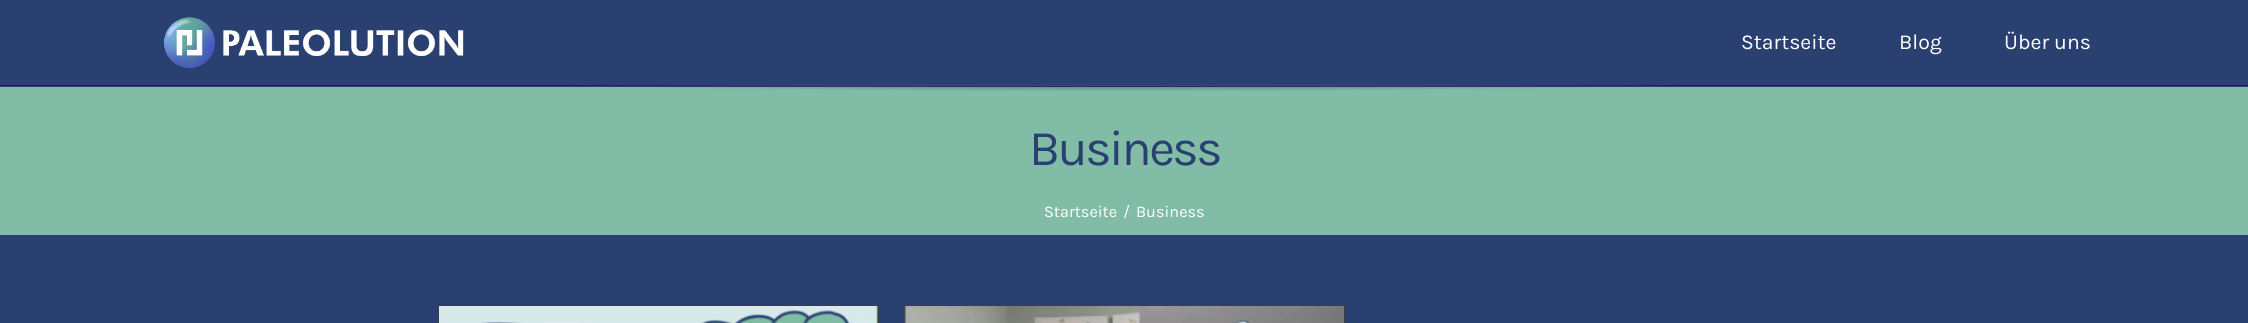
import math
import cairo

surface = cairo.ImageSurface(cairo.FORMAT_RGB24, 2248, 323)
ctx = cairo.Context(surface)
options = cairo.FontOptions()
options.set_hint_metrics(cairo.HINT_METRICS_OFF)
options.set_hint_style(cairo.HINT_STYLE_NONE)
ctx.set_font_options(options)
ctx.set_miter_limit(4)


def set_color(code):
    ctx.set_source_rgb(*(v / 255 for v in bytes.fromhex(code[-6:])))


def draw_text(x, y, s, family, size, color, bold=False, italic=False):
    ctx.select_font_face(family, cairo.FONT_SLANT_ITALIC if italic else cairo.FONT_SLANT_NORMAL, cairo.FONT_WEIGHT_BOLD if bold else cairo.FONT_WEIGHT_NORMAL)
    ctx.set_font_size(size)
    set_color(color)
    ctx.move_to(x, y)
    ctx.show_text(s)


def draw_spaced(x, y, s, letter, word):
    ctx.move_to(x, y)
    for ch in s:
        ctx.show_text(ch)
        ctx.rel_move_to(letter + word * (ch == ' '), 0)


def fill_rect(x, y, w, h, color):
    set_color(color)
    ctx.rectangle(x, y, w, h)
    ctx.fill()


def draw_image(path, x, y, w, h):
    ctx.save()
    ctx.set_source_surface(cairo.ImageSurface.create_from_png(path), x, y)
    ctx.rectangle(x, y, w, h)
    ctx.fill()
    ctx.restore()


set_color("#294071")
ctx.paint()
draw_image("assets/img1.png", 163, 17, 301, 52)
draw_text(1741, 49, "Startseite", "Karla", 21.25, "#ffffff")
draw_text(1899, 49, "Blog", "Karla", 21.25, "#ffffff")
draw_text(2004, 49, "Über uns", "Karla", 21.25, "#ffffff")
fill_rect(0, 85, 2248, 1, "#242424")
gradient = cairo.RadialGradient(0, 0, 0, 0, 0, 1)
gradient.set_matrix(cairo.Matrix(1 / 973, 0, 0, 1 / 2.7, -1 * 1124 / 973, -1 * 84 / 2.7))
gradient.add_color_stop_rgba(0, 1, 1, 1, 1)
gradient.add_color_stop_rgba(0.8, 0.141, 0.141, 0.141, 1)
ctx.set_source(gradient)
ctx.rectangle(573, 85, 1102, 1)
ctx.fill()
fill_rect(0, 87, 2248, 148, "#81bca6")
gradient = cairo.RadialGradient(0, 0, 0, 0, 0, 1)
gradient.set_matrix(cairo.Matrix(1 / 973, 0, 0, 1 / 16, -1 * 1124 / 973, -1 * 81 / 16))
gradient.add_color_stop_rgba(0, 0, 0, 0, 0.5)
gradient.add_color_stop_rgba(0.65, 0, 0, 0, 0)
ctx.set_source(gradient)
ctx.rectangle(617, 85, 1014, 6)
ctx.fill()
ctx.set_font_size(50)
set_color("#294071")
draw_spaced(1029, 165, "Business", -2.5, 0)
draw_text(1044, 217, "Startseite", "Karla", 16.25, "#ffffff")
draw_text(1123, 217, "/", "Karla", 16.25, "#ffffff")
draw_text(1136, 217, "Business", "Karla", 16.25, "#ffffff")
fill_rect(438, 305, 441, 1, "#3e3e3e")
fill_rect(878, 305, 1, 18, "#3e3e3e")
fill_rect(438, 305, 1, 18, "#3e3e3e")
draw_image("assets/img2.png", 439, 306, 439, 17)
fill_rect(904, 305, 441, 1, "#3e3e3e")
fill_rect(1344, 305, 1, 18, "#3e3e3e")
fill_rect(904, 305, 1, 18, "#3e3e3e")
draw_image("assets/img3.png", 904, 306, 440, 17)
surface.write_to_png("output.png")
